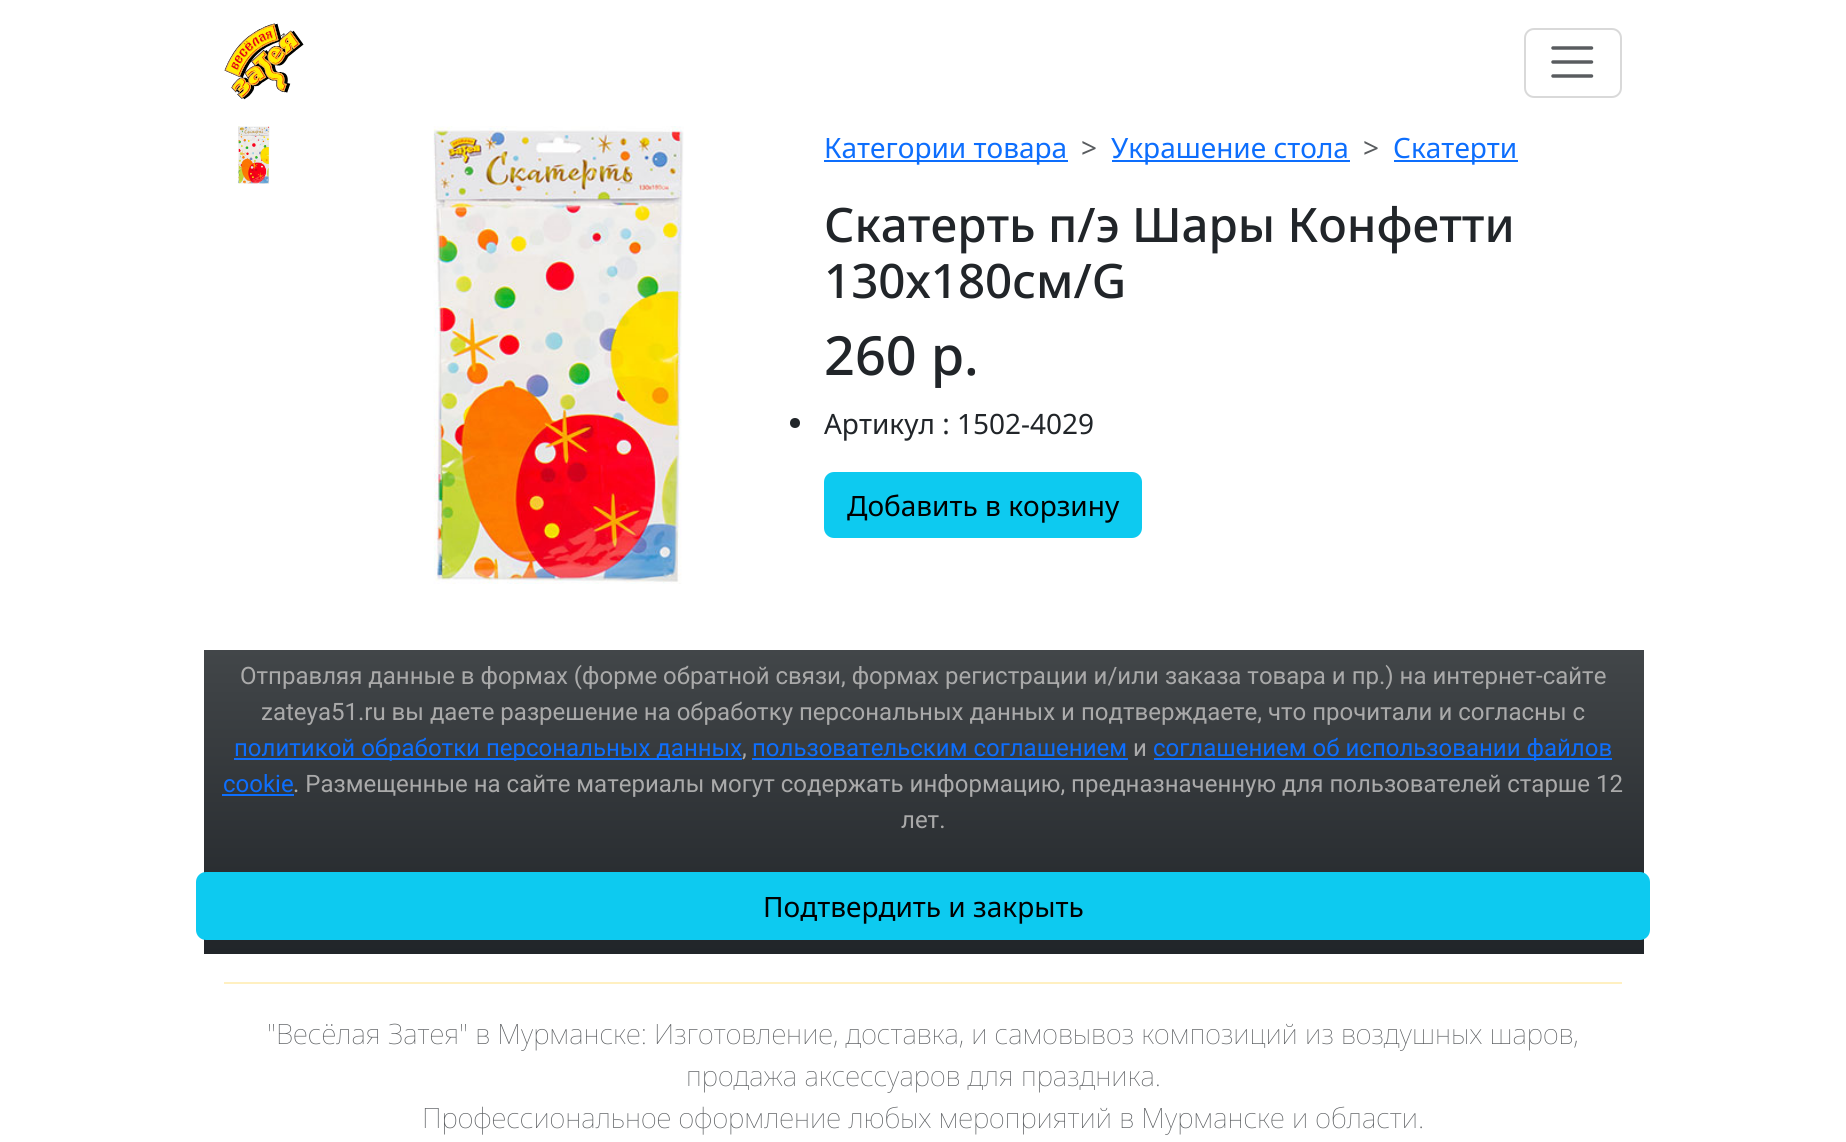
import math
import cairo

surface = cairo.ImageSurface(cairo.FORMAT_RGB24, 1846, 1142)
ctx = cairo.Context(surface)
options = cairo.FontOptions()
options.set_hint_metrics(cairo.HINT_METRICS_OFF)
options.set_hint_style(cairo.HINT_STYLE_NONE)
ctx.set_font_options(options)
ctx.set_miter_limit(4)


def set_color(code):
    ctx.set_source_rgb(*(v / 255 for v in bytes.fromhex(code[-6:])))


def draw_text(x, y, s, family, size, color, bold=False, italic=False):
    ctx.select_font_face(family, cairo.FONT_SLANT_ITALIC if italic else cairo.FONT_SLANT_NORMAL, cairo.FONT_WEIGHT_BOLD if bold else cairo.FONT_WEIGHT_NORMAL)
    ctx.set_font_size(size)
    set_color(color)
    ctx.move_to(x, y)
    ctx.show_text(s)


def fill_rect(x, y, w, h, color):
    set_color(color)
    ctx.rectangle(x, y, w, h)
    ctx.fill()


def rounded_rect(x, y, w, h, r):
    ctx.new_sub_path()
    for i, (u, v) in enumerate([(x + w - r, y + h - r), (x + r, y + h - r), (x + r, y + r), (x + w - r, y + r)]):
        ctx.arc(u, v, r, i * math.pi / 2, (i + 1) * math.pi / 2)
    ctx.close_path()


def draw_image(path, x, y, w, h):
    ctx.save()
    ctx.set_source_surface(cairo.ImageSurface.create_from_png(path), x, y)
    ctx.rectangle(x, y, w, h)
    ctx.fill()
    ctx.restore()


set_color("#ffffff")
ctx.paint()
draw_image("assets/img1.png", 224, 23, 80, 77)
rounded_rect(1525, 29, 96, 68, 9)
set_color("#d9d9d9")
ctx.stroke()
ctx.new_path()
ctx.move_to(1553, 48)
ctx.line_to(1591.5, 48)
ctx.move_to(1553, 62)
ctx.line_to(1591.5, 62)
ctx.move_to(1553, 76)
ctx.line_to(1591.5, 76)
set_color("#595c5f")
ctx.set_line_width(3.5)
ctx.set_line_cap(cairo.LINE_CAP_ROUND)
ctx.stroke()
draw_image("assets/img2.png", 238, 126, 32, 58)
draw_image("assets/img3.png", 433, 126, 251, 458)
fill_rect(824, 160, 244, 2, "#0d6efd")
draw_text(824, 158, "Категории товара", "Noto Sans", 28, "#0d6efd")
draw_text(1081, 158, ">", "Noto Sans", 28, "#595c5f")
fill_rect(1112, 160, 238, 2, "#0d6efd")
draw_text(1111, 158, "Украшение стола", "Noto Sans", 28, "#0d6efd")
draw_text(1363, 158, ">", "Noto Sans", 28, "#595c5f")
fill_rect(1394, 160, 124, 2, "#0d6efd")
draw_text(1393, 158, "Скатерти", "Noto Sans", 28, "#0d6efd")
draw_text(824, 242, "Скатерть п/э Шары Конфетти", "Noto Sans Medium", 47.5, "#212529")
draw_text(824, 298, "130х180см/G", "Noto Sans Medium", 47.5, "#212529")
draw_text(824, 375, "260 р.", "Noto Sans Medium", 54, "#212529")
ctx.new_path()
ctx.arc(795, 423, 5, 0, 2 * math.pi)
ctx.fill()
draw_text(824, 434, "Артикул : 1502-4029", "Noto Sans", 28, "#212529")
set_color("#0dcaf0")
rounded_rect(825, 473, 316, 64, 9)
ctx.fill_preserve()
ctx.set_line_width(2)
ctx.set_line_cap(cairo.LINE_CAP_BUTT)
ctx.stroke()
draw_text(847, 516, "Добавить в корзину", "Noto Sans", 28, "#000000")
gradient = cairo.LinearGradient(924, 650, 924, 954)
gradient.add_color_stop_rgba(0, 0.259, 0.275, 0.286, 1)
gradient.add_color_stop_rgba(1, 0.129, 0.145, 0.161, 1)
ctx.set_source(gradient)
ctx.rectangle(204, 650, 1440, 304)
ctx.fill()
draw_text(240, 684, "Отправляя данные в формах (форме обратной связи, формах регистрации и/или заказа товара и пр.) на интернет-сайте", "Roboto", 24, "#aaaaaa")
draw_text(261, 720, "zateya51.ru вы даете разрешение на обработку персональных данных и подтверждаете, что прочитали и согласны c", "Roboto", 24, "#aaaaaa")
fill_rect(234, 758, 508, 2, "#0d6efd")
draw_text(234, 756, "политикой обработки персональных данных", "Roboto", 24, "#0d6efd")
draw_text(742, 756, ",", "Roboto", 24, "#aaaaaa")
draw_text(752, 756, "пользовательским соглашением", "Roboto", 24, "#0d6efd")
fill_rect(752, 758, 376, 2, "#0d6efd")
draw_text(1133, 756, "и", "Roboto", 24, "#aaaaaa")
fill_rect(1154, 758, 458, 2, "#0d6efd")
draw_text(1153, 756, "соглашением об использовании файлов", "Roboto", 24, "#0d6efd")
draw_text(223, 792, "cookie", "Roboto", 24, "#0d6efd")
fill_rect(222, 794, 72, 2, "#0d6efd")
draw_text(293, 792, ". Размещенные на сайте материалы могут содержать информацию, предназначенную для пользователей старше 12", "Roboto", 24, "#aaaaaa")
draw_text(901, 828, "лет.", "Roboto", 24, "#aaaaaa")
set_color("#0dcaf0")
rounded_rect(197, 873, 1452, 66, 9)
ctx.fill_preserve()
ctx.stroke()
draw_text(763, 917, "Подтвердить и закрыть", "Noto Sans", 28, "#000000")
fill_rect(224, 982, 1398, 2, "#fff0c1")
draw_text(267, 1044, "\"Весёлая Затея\" в Мурманске: Изготовление, доставка, и самовывоз композиций из воздушных шаров,", "Noto Sans Thin", 28, "#595c5f")
draw_text(686, 1086, "продажа аксессуаров для праздника.", "Noto Sans Thin", 28, "#595c5f")
draw_text(422, 1128, "Профессиональное оформление любых мероприятий в Мурманске и области.", "Noto Sans Thin", 28, "#595c5f")
surface.write_to_png("output.png")
